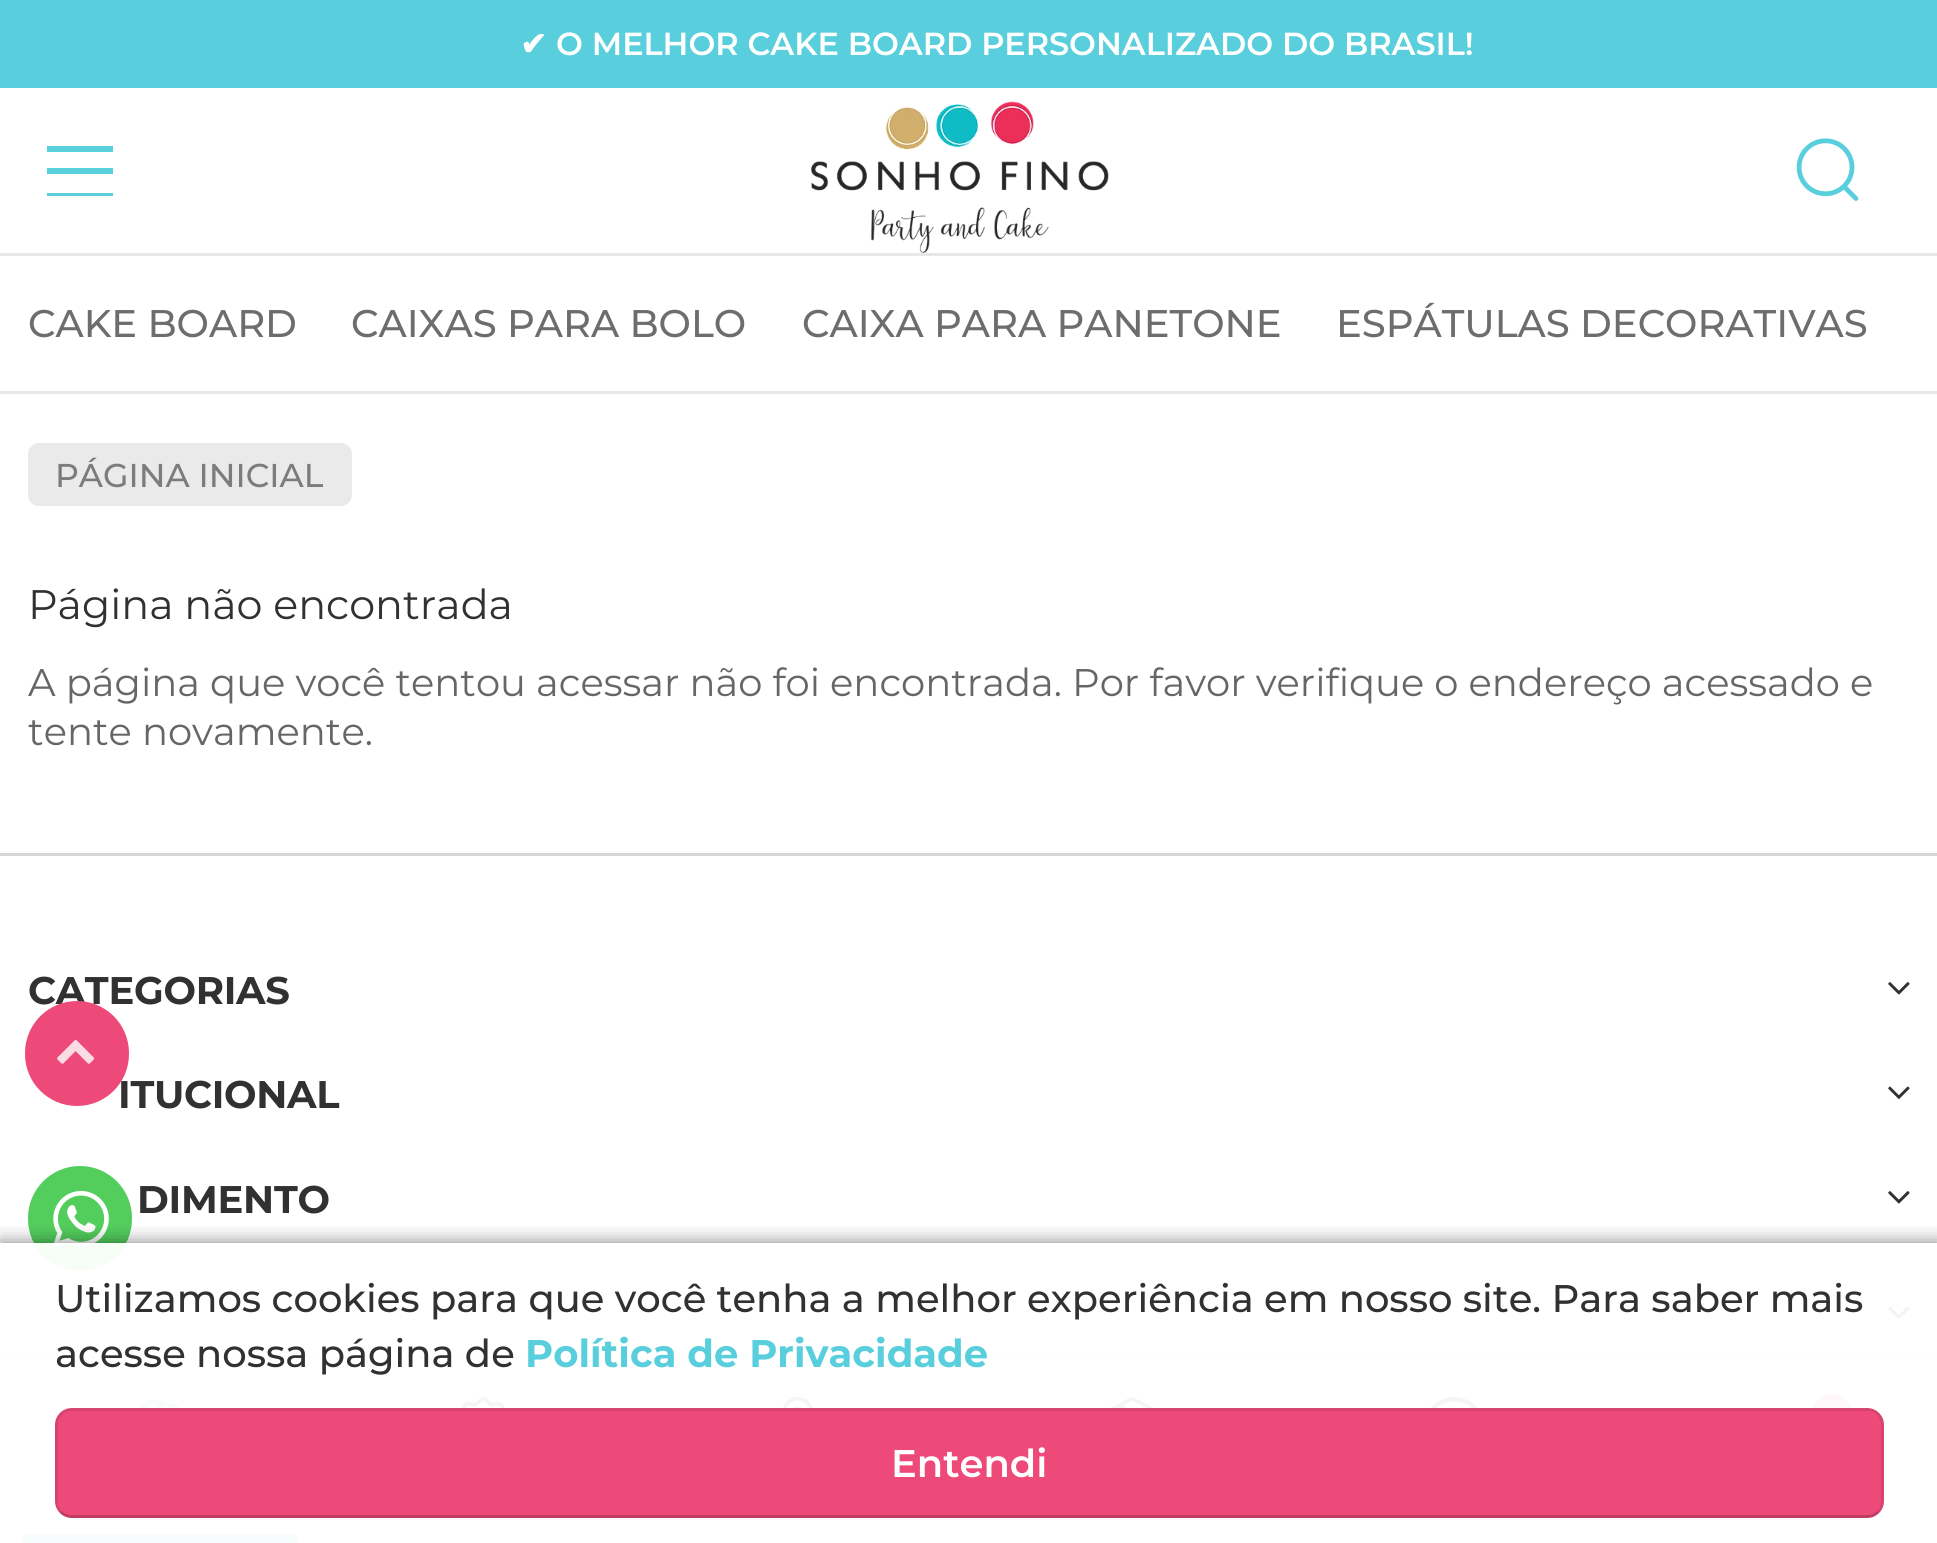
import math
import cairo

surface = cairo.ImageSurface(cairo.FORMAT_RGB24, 1937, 1543)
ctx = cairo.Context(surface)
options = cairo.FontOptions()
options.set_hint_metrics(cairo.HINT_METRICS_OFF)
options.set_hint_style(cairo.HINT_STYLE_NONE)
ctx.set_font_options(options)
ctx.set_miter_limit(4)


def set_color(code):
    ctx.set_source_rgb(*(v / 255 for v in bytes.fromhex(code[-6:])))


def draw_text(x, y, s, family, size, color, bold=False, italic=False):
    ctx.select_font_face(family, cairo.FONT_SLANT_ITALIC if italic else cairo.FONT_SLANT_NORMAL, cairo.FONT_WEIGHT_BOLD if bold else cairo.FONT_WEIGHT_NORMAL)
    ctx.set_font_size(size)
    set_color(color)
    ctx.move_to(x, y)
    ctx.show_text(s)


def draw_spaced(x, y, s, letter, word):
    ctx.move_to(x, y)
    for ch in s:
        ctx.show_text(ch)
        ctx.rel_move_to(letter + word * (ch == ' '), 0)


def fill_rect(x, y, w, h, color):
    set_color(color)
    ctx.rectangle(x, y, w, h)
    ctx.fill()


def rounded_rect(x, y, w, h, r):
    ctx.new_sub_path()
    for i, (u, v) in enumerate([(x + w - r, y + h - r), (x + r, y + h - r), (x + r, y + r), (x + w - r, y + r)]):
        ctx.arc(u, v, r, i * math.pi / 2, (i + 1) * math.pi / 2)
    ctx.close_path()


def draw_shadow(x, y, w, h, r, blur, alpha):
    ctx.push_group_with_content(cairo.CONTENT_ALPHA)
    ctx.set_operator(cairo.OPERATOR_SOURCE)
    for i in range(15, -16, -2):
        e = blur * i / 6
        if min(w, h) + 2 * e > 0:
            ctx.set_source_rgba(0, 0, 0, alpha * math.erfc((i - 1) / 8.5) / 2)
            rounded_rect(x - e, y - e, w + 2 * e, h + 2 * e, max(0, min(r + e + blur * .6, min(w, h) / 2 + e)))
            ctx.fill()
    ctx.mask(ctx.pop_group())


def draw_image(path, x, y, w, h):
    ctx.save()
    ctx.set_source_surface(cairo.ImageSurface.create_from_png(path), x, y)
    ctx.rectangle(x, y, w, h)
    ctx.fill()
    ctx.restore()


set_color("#ffffff")
ctx.paint()
fill_rect(0, 0, 1937, 88, "#59cedd")
draw_text(520, 55, "✔", "DejaVu Sans", 31.9, "#ffffff", bold=True)
draw_text(556, 55, "O MELHOR CAKE BOARD PERSONALIZADO DO BRASIL!", "Montserrat SemiBold", 31.9, "#ffffff")
fill_rect(47, 146, 66, 6, "#59cedd")
fill_rect(47, 168, 66, 6, "#59cedd")
fill_rect(47, 193, 66, 3, "#59cedd")
draw_image("assets/img1.png", 811, 101, 298, 152)
draw_image("assets/img2.png", 1796, 138, 63, 63)
fill_rect(0, 253, 1937, 3, "#e8e8e8")
fill_rect(0, 391, 1937, 3, "#e8e8e8")
draw_text(28, 337, "CAKE BOARD", "Montserrat Medium", 38.5, "#6d6d6d")
draw_text(351, 337, "CAIXAS PARA BOLO", "Montserrat Medium", 38.5, "#6d6d6d")
draw_text(802, 337, "CAIXA PARA PANETONE", "Montserrat Medium", 38.5, "#6d6d6d")
draw_text(1336, 337, "ESPÁTULAS DECORATIVAS", "Montserrat Medium", 38.5, "#6d6d6d")
set_color("#eaeaea")
rounded_rect(28, 443, 324, 63, 11)
ctx.fill()
draw_text(55, 487, "PÁGINA INICIAL", "Montserrat Medium", 33, "#7c7c7c")
draw_text(28, 619, "Página não encontrada", "Montserrat", 41.25, "#313131")
draw_text(28, 696, "A página que você tentou acessar não foi encontrada. Por favor verifique o endereço acessado e", "Montserrat", 38.5, "#666666")
draw_text(28, 745, "tente novamente.", "Montserrat", 38.5, "#666666")
fill_rect(0, 853, 1937, 3, "#d6d6d6")
ctx.select_font_face("Montserrat", cairo.FONT_SLANT_NORMAL, cairo.FONT_WEIGHT_BOLD)
set_color("#313131")
draw_spaced(28, 1004, "CATEGORIAS", -0.25, 0)
draw_image("assets/img3.png", 1888, 982, 22, 13)
draw_spaced(118, 1108, "ITUCIONAL", -0.25, 0)
draw_image("assets/img4.png", 1888, 1086, 22, 13)
draw_spaced(137, 1213, "DIMENTO", -0.25, 0)
draw_image("assets/img3.png", 1888, 1191, 22, 13)
draw_image("assets/img5.png", 1888, 1306, 22, 13)
set_color("#ed4a7a")
rounded_rect(25, 1001, 104, 105, 52)
ctx.fill()
draw_image("assets/img6.png", 57, 1040, 38, 24)
set_color("#53ce5d")
rounded_rect(28, 1166, 104, 105, 52)
ctx.fill()
draw_image("assets/img7.png", 52, 1190, 57, 58)
fill_rect(0, 1356, 1937, 3, "#e4e4e4")
draw_image("assets/img8.png", 139, 1399, 41, 9)
fill_rect(22, 1535, 275, 8, "#59cedd")
draw_image("assets/img9.png", 462, 1397, 43, 11)
draw_image("assets/img10.png", 783, 1397, 30, 11)
draw_image("assets/img11.png", 1110, 1397, 45, 11)
draw_image("assets/img12.png", 1430, 1397, 48, 11)
set_color("#ed4a7a")
ctx.arc(1831.5, 1413.5, 19.5, 0, 2 * math.pi)
ctx.fill()
ctx.save()
ctx.rectangle(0, 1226, 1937, 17)
ctx.clip()
set_color("#000000")
draw_shadow(0, 1243, 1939, 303, 0, 9.5, 0.5)
ctx.restore()
ctx.set_source_rgba(1, 1, 1, 0.95)
ctx.rectangle(0, 1243, 1937, 300)
ctx.fill()
draw_text(55, 1312, "Utilizamos cookies para que você tenha a melhor experiência em nosso site. Para saber mais", "Montserrat Medium", 38.5, "#313131")
draw_text(55, 1367, "acesse nossa página de", "Montserrat Medium", 38.5, "#313131")
draw_text(525, 1367, "Política de Privacidade", "Montserrat", 38.5, "#59cedd", bold=True)
set_color("#ed4a7a")
rounded_rect(55, 1408, 1829, 110, 17)
ctx.fill()
ctx.new_path()
ctx.move_to(1878, 1512)
ctx.curve_to(1875, 1515, 1871.5, 1516.5, 1867, 1516.5)
ctx.line_to(71.5, 1516.5)
ctx.curve_to(67.5, 1516.5, 63.5, 1515, 61, 1512)
ctx.set_source_rgba(0, 0, 0, 0.2)
ctx.set_line_width(2.8)
ctx.stroke()
ctx.new_path()
ctx.move_to(61, 1512)
ctx.curve_to(58, 1509.5, 56.5, 1505.5, 56.5, 1501.5)
ctx.line_to(56.5, 1424.5)
ctx.curve_to(56.5, 1420.5, 58, 1416.5, 61, 1414)
ctx.curve_to(63.5, 1411, 67.5, 1409.5, 71.5, 1409.5)
ctx.line_to(1867, 1409.5)
ctx.curve_to(1871.5, 1409.5, 1875, 1411, 1878, 1414)
ctx.curve_to(1881, 1416.5, 1882.5, 1420.5, 1882.5, 1424.5)
ctx.line_to(1882.5, 1501.5)
ctx.curve_to(1882.5, 1505.5, 1881, 1509.5, 1878, 1512)
ctx.set_source_rgba(0, 0, 0, 0.1)
ctx.stroke()
draw_text(891, 1477, "Entendi", "Montserrat SemiBold", 38.5, "#ffffff")
surface.write_to_png("output.png")
